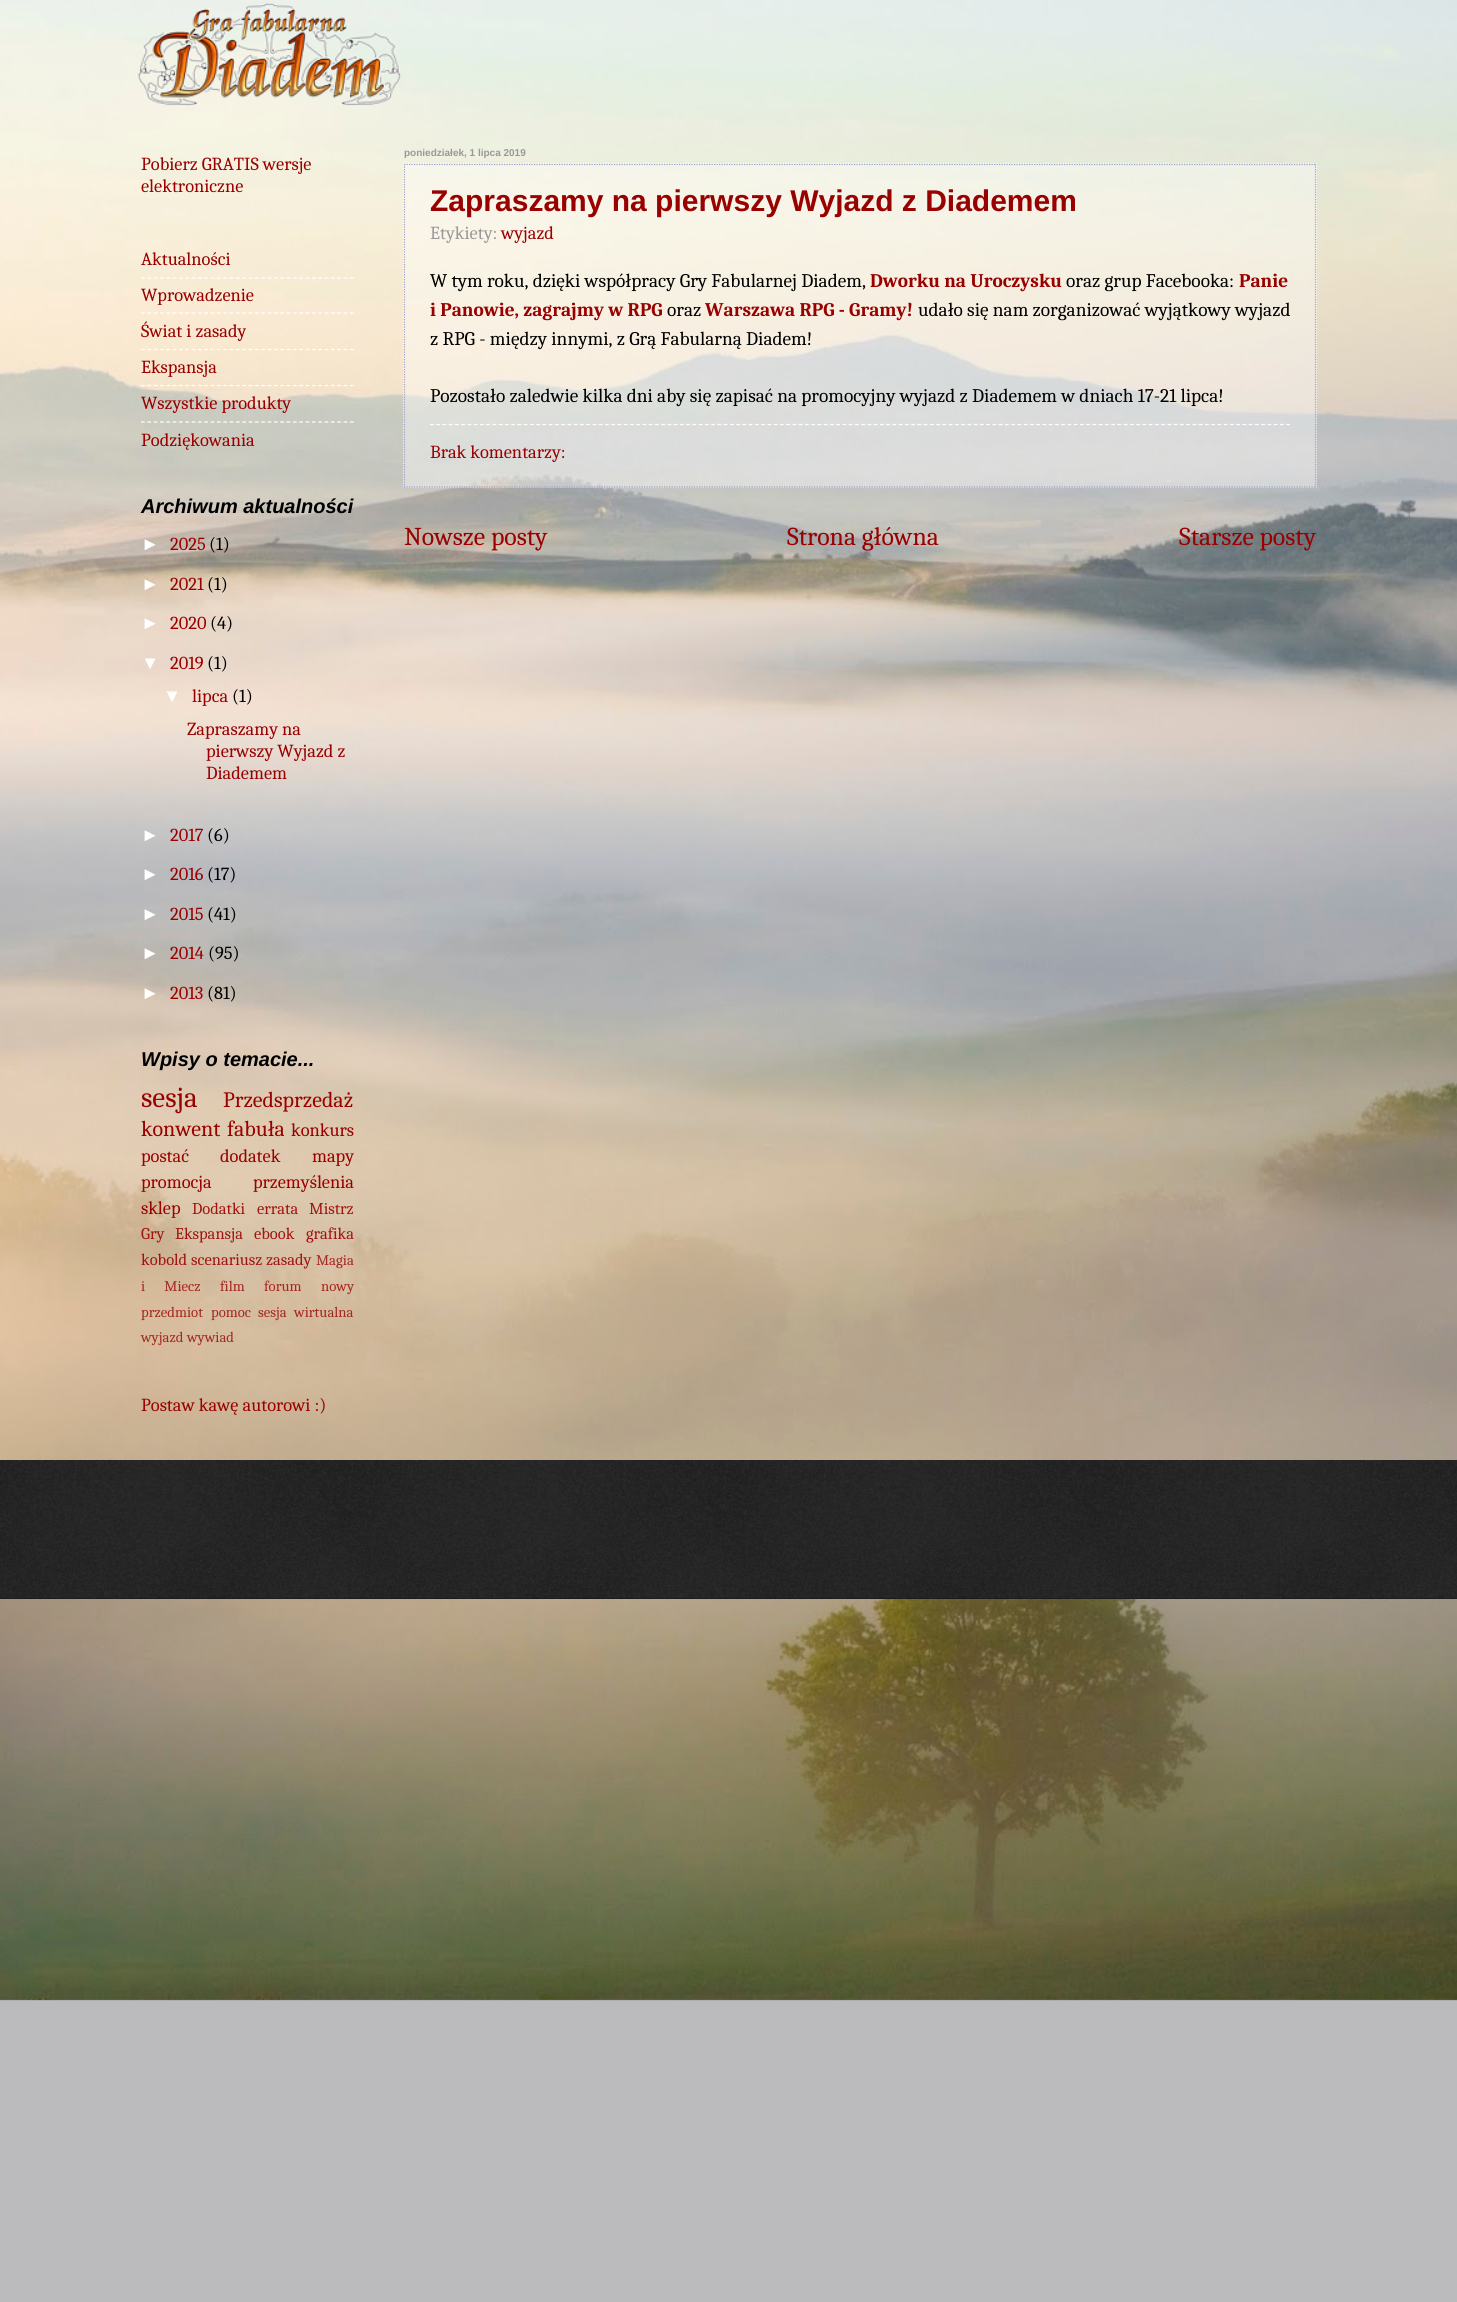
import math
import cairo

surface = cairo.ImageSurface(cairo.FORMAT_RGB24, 1457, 2302)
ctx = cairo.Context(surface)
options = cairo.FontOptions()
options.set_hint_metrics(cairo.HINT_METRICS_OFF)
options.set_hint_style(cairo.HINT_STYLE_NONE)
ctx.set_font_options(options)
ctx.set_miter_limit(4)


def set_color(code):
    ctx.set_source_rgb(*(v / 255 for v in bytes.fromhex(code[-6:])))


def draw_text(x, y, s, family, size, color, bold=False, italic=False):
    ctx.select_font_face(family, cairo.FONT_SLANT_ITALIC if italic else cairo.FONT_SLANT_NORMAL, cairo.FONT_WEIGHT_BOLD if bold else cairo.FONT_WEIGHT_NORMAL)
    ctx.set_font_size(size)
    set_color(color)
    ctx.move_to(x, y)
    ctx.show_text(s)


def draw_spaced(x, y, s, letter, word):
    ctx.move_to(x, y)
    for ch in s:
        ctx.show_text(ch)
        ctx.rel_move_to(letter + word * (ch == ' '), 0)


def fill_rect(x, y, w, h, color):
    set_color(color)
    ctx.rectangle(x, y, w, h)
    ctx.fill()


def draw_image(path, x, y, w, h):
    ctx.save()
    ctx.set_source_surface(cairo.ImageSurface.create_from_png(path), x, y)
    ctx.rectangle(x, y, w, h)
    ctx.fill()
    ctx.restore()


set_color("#bbbbbd")
ctx.paint()
draw_image("assets/img1.png", 0, 0, 1457, 2001)
draw_image("assets/img2.png", 136, 3, 265, 103)
draw_text(141, 170, "Pobierz GRATIS wersje", "Caladea", 18.4, "#990000")
draw_text(141, 192, "elektroniczne", "Caladea", 18.4, "#990000")
draw_text(141, 265, "Aktualności", "Caladea", 18.4, "#990000")
ctx.new_path()
ctx.move_to(141, 278)
ctx.line_to(354, 278)
set_color("#ffffff")
ctx.set_line_width(1.2)
ctx.set_dash([3.75, 2.58])
ctx.stroke()
draw_text(141, 301, "Wprowadzenie", "Caladea", 18.4, "#990000")
ctx.new_path()
ctx.move_to(141, 313)
ctx.line_to(354, 313)
set_color("#ffffff")
ctx.stroke()
draw_text(141, 337, "Świat i zasady", "Caladea", 18.4, "#990000")
ctx.new_path()
ctx.move_to(141, 349.5)
ctx.line_to(354, 349.5)
set_color("#ffffff")
ctx.stroke()
draw_text(141, 373, "Ekspansja", "Caladea", 18.4, "#990000")
ctx.new_path()
ctx.move_to(141, 385.5)
ctx.line_to(354, 385.5)
set_color("#ffffff")
ctx.stroke()
draw_text(141, 409, "Wszystkie produkty", "Caladea", 18.4, "#990000")
ctx.new_path()
ctx.move_to(141, 422)
ctx.line_to(354, 422)
set_color("#ffffff")
ctx.stroke()
draw_text(141, 446, "Podziękowania", "Caladea", 18.4, "#990000")
draw_text(141, 513, "Archiwum aktualności", "Liberation Sans", 20, "#000000", bold=True, italic=True)
draw_text(141, 550, "►", "Liberation Sans", 18.4, "#ffffff")
draw_text(170, 550, "2025", "Caladea", 18.4, "#990000")
draw_text(209, 550, "(1)", "Caladea", 18.4, "#000000")
draw_text(141, 590, "►", "Liberation Sans", 18.4, "#ffffff")
draw_text(170, 590, "2021", "Caladea", 18.4, "#990000")
draw_text(207, 590, "(1)", "Caladea", 18.4, "#000000")
draw_text(141, 629, "►", "Liberation Sans", 18.4, "#ffffff")
draw_text(170, 629, "2020", "Caladea", 18.4, "#990000")
draw_text(210, 629, "(4)", "Caladea", 18.4, "#000000")
draw_text(141, 669, "▼", "Liberation Sans", 18.4, "#ffffff")
draw_text(170, 669, "2019", "Caladea", 18.4, "#990000")
draw_text(207, 669, "(1)", "Caladea", 18.4, "#000000")
draw_text(163, 702, "▼", "Liberation Sans", 18.4, "#ffffff")
draw_text(192, 702, "lipca", "Caladea", 18.4, "#990000")
draw_text(232, 702, "(1)", "Caladea", 18.4, "#000000")
draw_text(187, 735, "Zapraszamy na", "Caladea", 18.4, "#990000")
draw_text(206, 757, "pierwszy Wyjazd z", "Caladea", 18.4, "#990000")
draw_text(206, 779, "Diademem", "Caladea", 18.4, "#990000")
draw_text(141, 841, "►", "Liberation Sans", 18.4, "#ffffff")
draw_text(170, 841, "2017", "Caladea", 18.4, "#990000")
draw_text(207, 841, "(6)", "Caladea", 18.4, "#000000")
draw_text(141, 880, "►", "Liberation Sans", 18.4, "#ffffff")
draw_text(170, 880, "2016", "Caladea", 18.4, "#990000")
draw_text(207, 880, "(17)", "Caladea", 18.4, "#000000")
draw_text(141, 920, "►", "Liberation Sans", 18.4, "#ffffff")
draw_text(170, 920, "2015", "Caladea", 18.4, "#990000")
draw_text(207, 920, "(41)", "Caladea", 18.4, "#000000")
draw_text(141, 959, "►", "Liberation Sans", 18.4, "#ffffff")
draw_text(170, 959, "2014", "Caladea", 18.4, "#990000")
draw_text(208, 959, "(95)", "Caladea", 18.4, "#000000")
draw_text(141, 999, "►", "Liberation Sans", 18.4, "#ffffff")
draw_text(170, 999, "2013", "Caladea", 18.4, "#990000")
draw_text(207, 999, "(81)", "Caladea", 18.4, "#000000")
draw_text(141, 1066, "Wpisy o temacie...", "Liberation Sans", 20, "#000000", bold=True, italic=True)
draw_text(141, 1107, "sesja", "Caladea", 29, "#990000")
draw_text(223, 1107, "Przedsprzedaż", "Caladea", 22, "#990000")
draw_text(141, 1136, "konwent", "Caladea", 22, "#990000")
draw_text(227, 1136, "fabuła", "Caladea", 22, "#990000")
draw_text(291, 1136, "konkurs", "Caladea", 18.4, "#990000")
draw_text(141, 1162, "postać", "Caladea", 18.4, "#990000")
draw_text(220, 1162, "dodatek", "Caladea", 18.4, "#990000")
draw_text(312, 1162, "mapy", "Caladea", 18.4, "#990000")
draw_text(141, 1188, "promocja", "Caladea", 18.4, "#990000")
draw_text(253, 1188, "przemyślenia", "Caladea", 18.4, "#990000")
draw_text(141, 1214, "sklep", "Caladea", 18.4, "#990000")
draw_text(192, 1214, "Dodatki", "Caladea", 16.5, "#a01411")
draw_text(257, 1214, "errata", "Caladea", 16.5, "#a01411")
draw_text(309, 1214, "Mistrz", "Caladea", 16.5, "#a01411")
draw_text(141, 1239, "Gry", "Caladea", 16.5, "#a01411")
draw_text(175, 1239, "Ekspansja", "Caladea", 16.5, "#a01411")
draw_text(254, 1239, "ebook", "Caladea", 16.5, "#a01411")
draw_text(306, 1239, "grafika", "Caladea", 16.5, "#a01411")
draw_text(141, 1265, "kobold", "Caladea", 16.5, "#a01411")
draw_text(191, 1265, "scenariusz zasady", "Caladea", 16.5, "#a01411")
draw_text(316, 1265, "Magia", "Caladea", 14.75, "#a52721")
draw_spaced(141, 1291, "i Miecz", 0, 16)
draw_text(220, 1291, "film", "Caladea", 14.75, "#a52721")
draw_text(264, 1291, "forum", "Caladea", 14.75, "#a52721")
draw_text(321, 1291, "nowy", "Caladea", 14.75, "#a52721")
draw_text(141, 1317, "przedmiot", "Caladea", 14.75, "#a52721")
draw_text(211, 1317, "pomoc", "Caladea", 14.75, "#a52721")
draw_spaced(258, 1317, "sesja wirtualna", 0, 4)
draw_text(141, 1342, "wyjazd", "Caladea", 14.75, "#a52721")
draw_text(187, 1342, "wywiad", "Caladea", 14.75, "#a52721")
draw_text(141, 1411, "Postaw kawę autorowi :)", "Caladea", 18.4, "#990000")
draw_text(404, 156, "poniedziałek, 1 lipca 2019", "Liberation Sans", 10, "#999999", bold=True)
ctx.set_source_rgba(1, 1, 1, 0.4)
ctx.rectangle(403, 163, 914, 325)
ctx.fill()
ctx.new_path()
ctx.move_to(404, 164.5)
ctx.line_to(1316, 164.5)
set_color("#9ea0ce")
ctx.set_dash([1.25, 1.25])
ctx.stroke()
ctx.new_path()
ctx.move_to(1315.5, 164)
ctx.line_to(1315.5, 487.5)
ctx.stroke()
ctx.new_path()
ctx.move_to(404, 487)
ctx.line_to(1316, 487)
ctx.stroke()
ctx.new_path()
ctx.move_to(404.5, 164)
ctx.line_to(404.5, 487.5)
ctx.stroke()
draw_text(430, 211, "Zapraszamy na pierwszy Wyjazd z Diademem", "Liberation Sans", 30, "#990000", bold=True)
draw_text(430, 239, "Etykiety:", "Caladea", 18.4, "#999999")
draw_text(501, 239, "wyjazd", "Caladea", 18.4, "#990000")
draw_text(430, 287, "W tym roku, dzięki współpracy Gry Fabularnej Diadem,", "Caladea", 19.3, "#000000")
draw_text(870, 287, "Dworku na Uroczysku", "Caladea", 19.3, "#990000", bold=True)
draw_text(1066, 287, "oraz grup Facebooka:", "Caladea", 19.3, "#000000")
draw_text(1239, 287, "Panie", "Caladea", 19.3, "#990000", bold=True)
draw_text(430, 316, "i Panowie, zagrajmy w RPG", "Caladea", 19.3, "#990000", bold=True)
draw_text(667, 316, "oraz", "Caladea", 19.3, "#000000")
draw_text(705, 316, "Warszawa RPG - Gramy!", "Caladea", 19.3, "#990000", bold=True)
draw_text(918, 316, "udało się nam zorganizować wyjątkowy wyjazd", "Caladea", 19.3, "#000000")
draw_text(430, 345, "z RPG - między innymi, z Grą Fabularną Diadem!", "Caladea", 19.3, "#000000")
draw_text(430, 402, "Pozostało zaledwie kilka dni aby się zapisać na promocyjny wyjazd z Diademem w dniach 17-21 lipca!", "Caladea", 19.3, "#000000")
ctx.new_path()
ctx.move_to(430, 424.5)
ctx.line_to(1290, 424.5)
set_color("#ffffff")
ctx.set_dash([3.75, 2.5])
ctx.stroke()
draw_text(430, 458, "Brak komentarzy:", "Caladea", 18.4, "#990000")
draw_text(404, 545, "Nowsze posty", "Caladea", 25.75, "#990000")
draw_text(787, 545, "Strona główna", "Caladea", 25.75, "#990000")
draw_text(1179, 545, "Starsze posty", "Caladea", 25.75, "#990000")
fill_rect(0, 1460, 1457, 139, "#000000")
draw_image("assets/img3.png", 0, 1460, 1457, 139)
surface.write_to_png("output.png")
